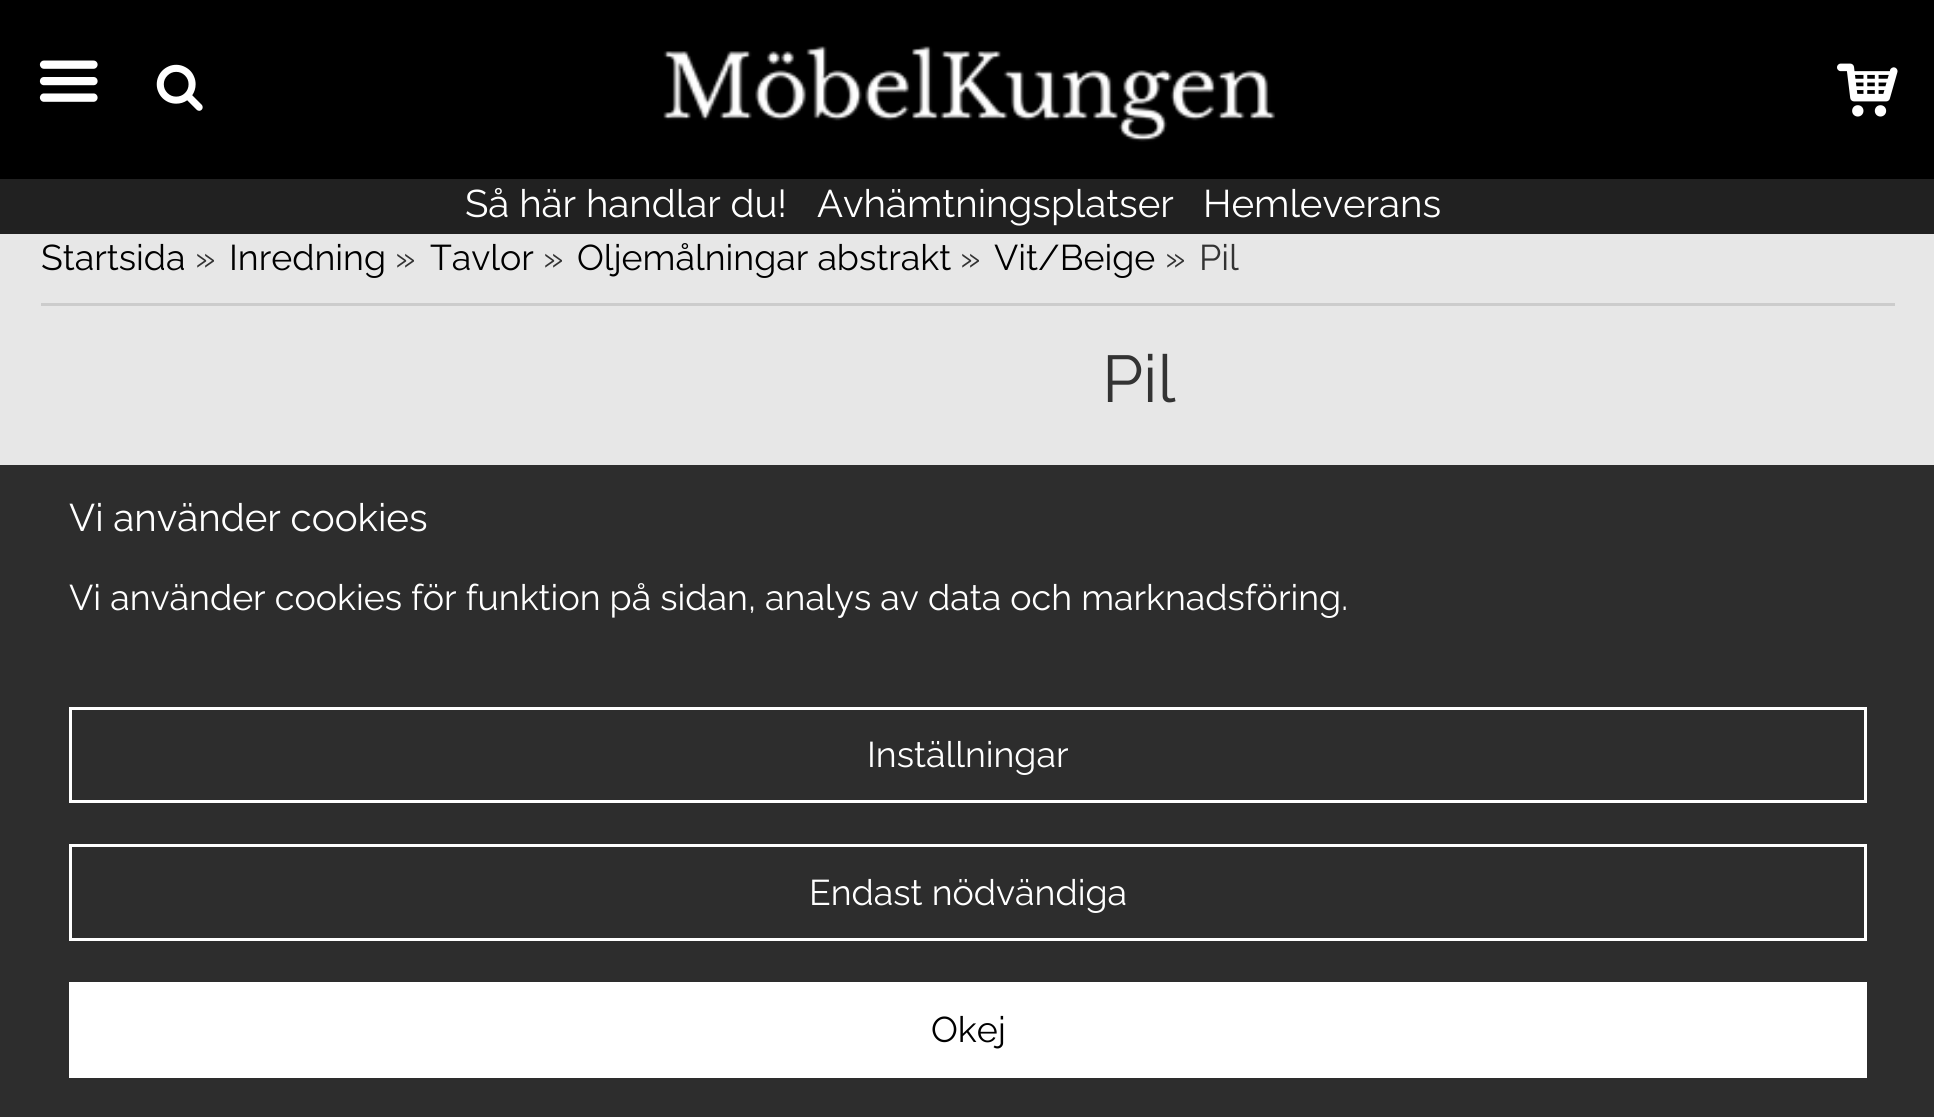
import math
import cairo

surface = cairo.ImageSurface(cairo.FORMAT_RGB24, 1934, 1117)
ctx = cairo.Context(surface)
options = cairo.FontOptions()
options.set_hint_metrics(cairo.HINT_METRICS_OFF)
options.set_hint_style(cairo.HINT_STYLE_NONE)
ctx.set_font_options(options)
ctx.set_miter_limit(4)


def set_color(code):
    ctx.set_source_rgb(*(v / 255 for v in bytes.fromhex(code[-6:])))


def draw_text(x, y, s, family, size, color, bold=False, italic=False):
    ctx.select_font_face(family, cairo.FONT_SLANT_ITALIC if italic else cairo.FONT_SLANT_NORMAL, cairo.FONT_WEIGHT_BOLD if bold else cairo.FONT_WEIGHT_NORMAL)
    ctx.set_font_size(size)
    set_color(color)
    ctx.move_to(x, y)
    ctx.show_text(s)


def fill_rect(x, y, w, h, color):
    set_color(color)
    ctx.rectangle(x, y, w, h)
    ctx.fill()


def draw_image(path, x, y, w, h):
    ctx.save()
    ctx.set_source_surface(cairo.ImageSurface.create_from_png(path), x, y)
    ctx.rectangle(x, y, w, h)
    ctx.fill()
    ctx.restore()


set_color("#e7e7e7")
ctx.paint()
fill_rect(0, 0, 1934, 179, "#000000")
draw_image("assets/img1.png", 39, 60, 59, 42)
draw_image("assets/img2.png", 156, 64, 47, 47)
draw_image("assets/img3.png", 663, 46, 613, 96)
draw_image("assets/img4.png", 1837, 63, 61, 54)
fill_rect(0, 179, 1934, 55, "#212121")
draw_text(465, 217, "Så här handlar du!", "Raleway", 38.5, "#ffffff")
draw_text(817, 217, "Avhämtningsplatser", "Raleway", 38.5, "#ffffff")
draw_text(1203, 217, "Hemleverans", "Raleway", 38.5, "#ffffff")
fill_rect(41, 303, 1854, 3, "#cccccc")
draw_text(41, 270, "Startsida", "Raleway", 35.75, "#000000")
draw_text(195, 270, "»", "Raleway", 35.75, "#333333")
draw_text(229, 270, "Inredning", "Raleway", 35.75, "#000000")
draw_text(395, 270, "»", "Raleway", 35.75, "#333333")
draw_text(430, 270, "Tavlor", "Raleway", 35.75, "#000000")
draw_text(543, 270, "»", "Raleway", 35.75, "#333333")
draw_text(577, 270, "Oljemålningar abstrakt", "Raleway", 35.75, "#000000")
draw_text(960, 270, "»", "Raleway", 35.75, "#333333")
draw_text(994, 270, "Vit/Beige", "Raleway", 35.75, "#000000")
draw_text(1165, 270, "»", "Raleway", 35.75, "#333333")
draw_text(1199, 270, "Pil", "Raleway", 35.75, "#333333")
draw_text(1102, 402, "Pil", "Raleway", 66, "#333333")
fill_rect(0, 465, 1934, 652, "#2d2d2d")
draw_text(69, 531, "Vi använder cookies", "Raleway", 38.5, "#ffffff")
draw_text(69, 610, "Vi använder cookies för funktion på sidan, analys av data och marknadsföring.", "Raleway", 35.75, "#ffffff")
ctx.rectangle(70.5, 708.5, 1795, 93)
ctx.set_line_width(3)
ctx.stroke()
draw_text(867, 767, "Inställningar", "Raleway", 35.75, "#ffffff")
ctx.rectangle(70.5, 845.5, 1795, 94)
ctx.stroke()
draw_text(809, 905, "Endast nödvändiga", "Raleway", 35.75, "#ffffff")
fill_rect(69, 982, 1798, 96, "#ffffff")
draw_text(931, 1042, "Okej", "Raleway", 35.75, "#000000")
surface.write_to_png("output.png")
